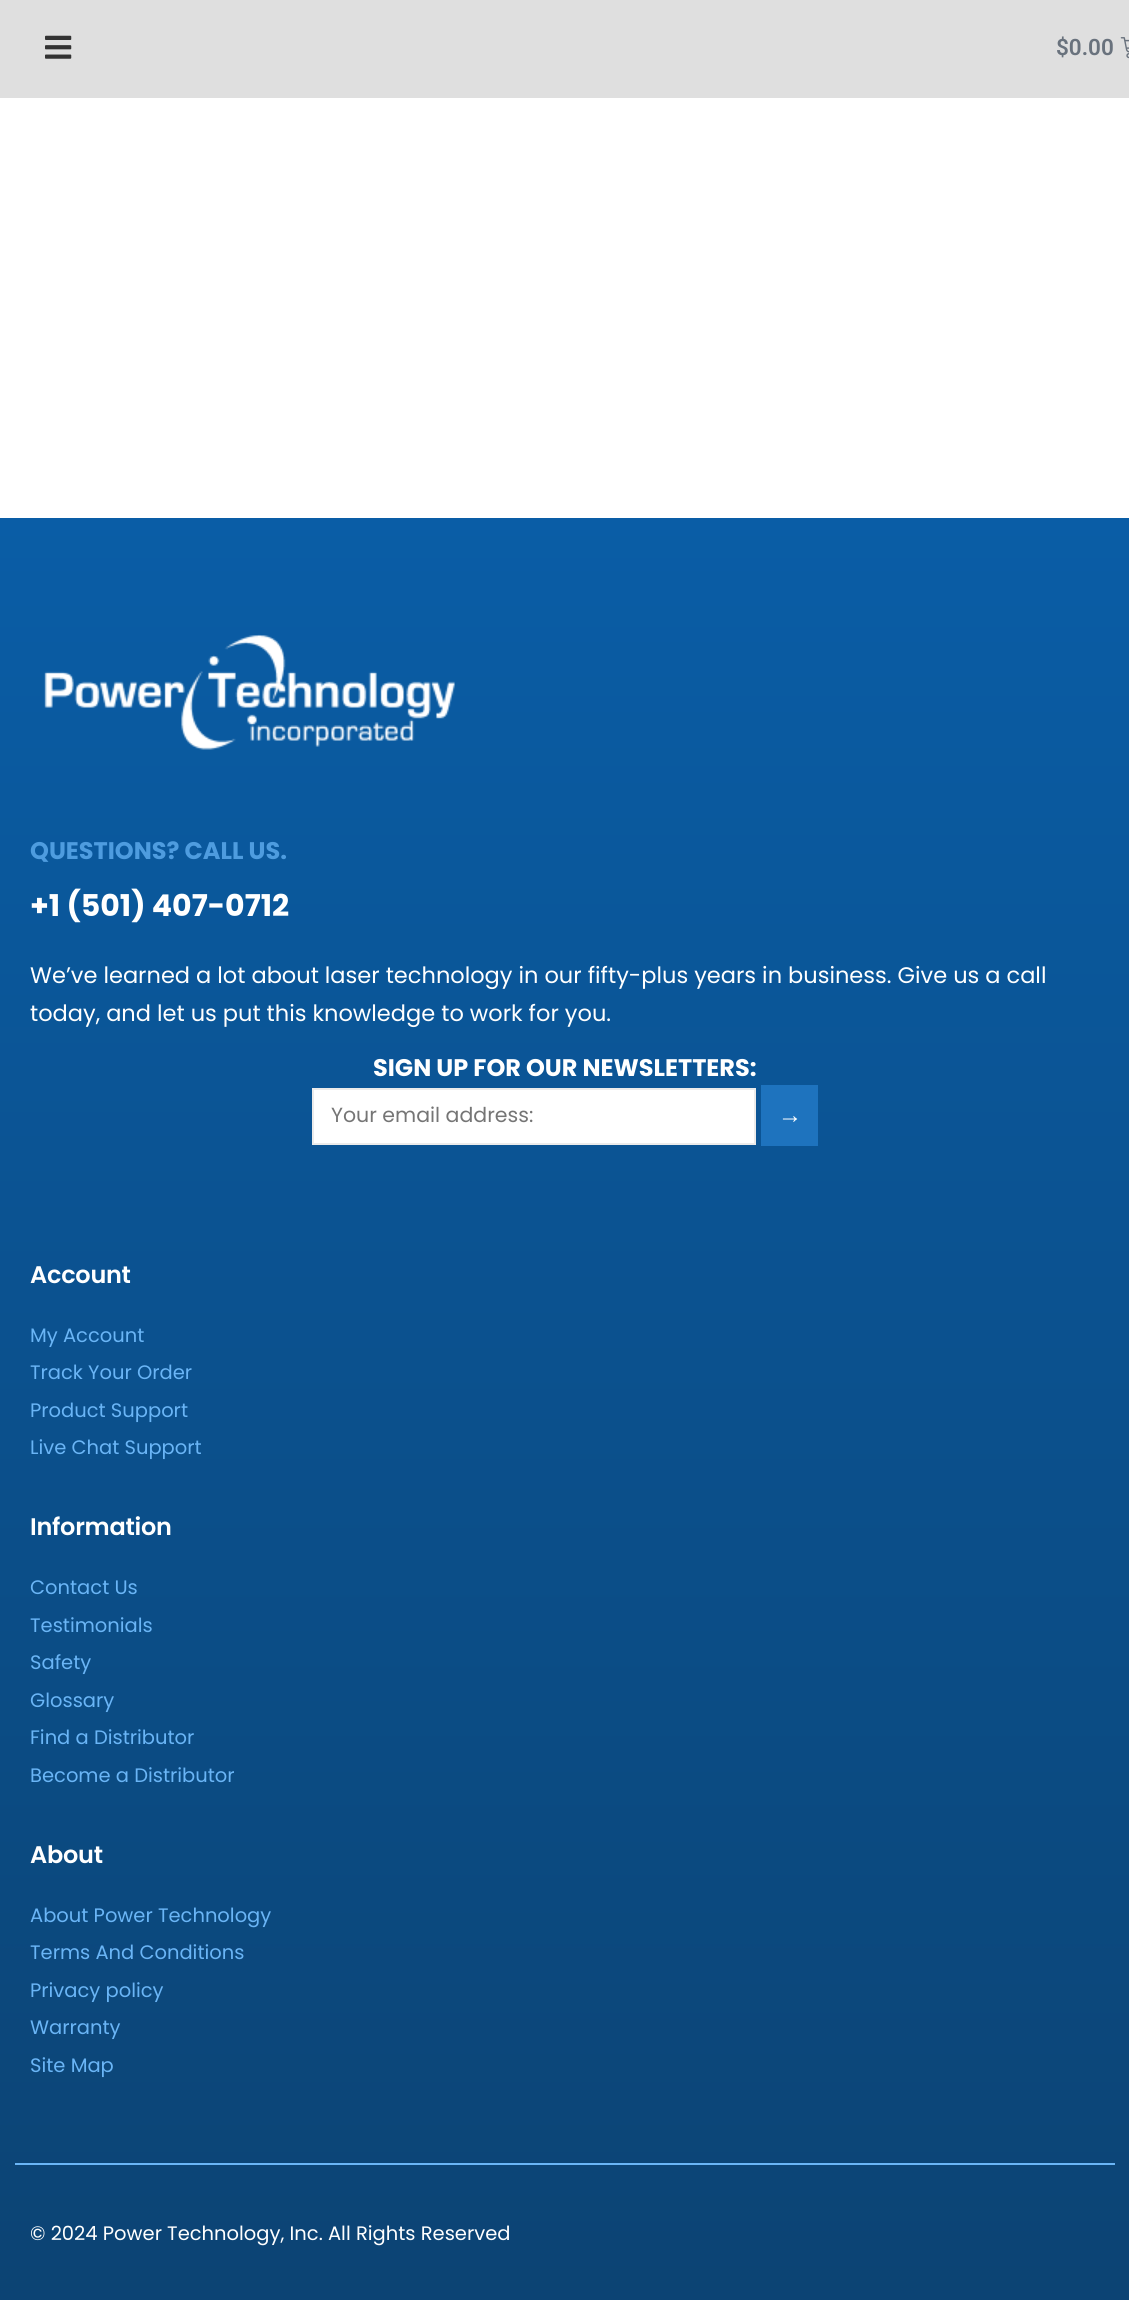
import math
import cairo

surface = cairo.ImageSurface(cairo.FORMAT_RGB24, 1129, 2300)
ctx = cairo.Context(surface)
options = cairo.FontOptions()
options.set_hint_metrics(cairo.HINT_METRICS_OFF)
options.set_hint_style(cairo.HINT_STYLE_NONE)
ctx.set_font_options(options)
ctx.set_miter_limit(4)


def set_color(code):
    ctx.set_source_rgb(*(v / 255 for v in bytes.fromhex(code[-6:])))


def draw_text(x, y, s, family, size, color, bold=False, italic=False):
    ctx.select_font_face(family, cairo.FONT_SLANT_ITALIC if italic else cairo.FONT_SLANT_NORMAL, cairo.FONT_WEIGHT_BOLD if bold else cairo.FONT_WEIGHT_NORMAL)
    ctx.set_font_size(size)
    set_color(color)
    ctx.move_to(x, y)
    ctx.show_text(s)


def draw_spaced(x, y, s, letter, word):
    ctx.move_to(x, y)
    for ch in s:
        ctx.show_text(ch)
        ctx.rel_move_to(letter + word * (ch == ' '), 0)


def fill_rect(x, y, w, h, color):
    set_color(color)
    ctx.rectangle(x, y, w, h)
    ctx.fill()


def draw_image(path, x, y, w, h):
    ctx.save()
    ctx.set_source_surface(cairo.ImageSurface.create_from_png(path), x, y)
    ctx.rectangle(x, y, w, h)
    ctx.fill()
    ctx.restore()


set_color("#ffffff")
ctx.paint()
fill_rect(0, 0, 1129, 98, "#dfdfdf")
draw_image("assets/img1.png", 45, 35, 27, 24)
draw_text(1056, 55, "$0.00", "Roboto SemiBold", 22.5, "#69727d")
draw_image("assets/img2.png", 1120, 37, 9, 22)
gradient = cairo.LinearGradient(565, 518, 565, 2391)
gradient.add_color_stop_rgba(0, 0.039, 0.365, 0.651, 1)
gradient.add_color_stop_rgba(1, 0.047, 0.259, 0.443, 1)
ctx.set_source(gradient)
ctx.rectangle(0, 518, 1129, 1782)
ctx.fill()
draw_image("assets/img3.png", 44, 634, 411, 116)
draw_text(30, 859, "QUESTIONS? CALL US.", "Poppins", 24, "#4e9cdf", bold=True)
draw_text(30, 916, "+1 (501) 407-0712", "Poppins", 30, "#ffffff", bold=True)
draw_text(30, 983, "We’ve learned a lot about laser technology in our fifty-plus years in business. Give us a call", "Poppins", 22.5, "#ffffff")
draw_text(30, 1021, "today, and let us put this knowledge to work for you.", "Poppins", 22.5, "#ffffff")
draw_text(373, 1076, "SIGN UP FOR OUR NEWSLETTERS:", "Poppins", 24, "#ffffff", bold=True)
ctx.rectangle(313, 1089, 442, 55)
ctx.fill_preserve()
set_color("#ebebeb")
ctx.stroke()
draw_text(331, 1122, "Your email address:", "Poppins", 20.5, "#757575")
fill_rect(761, 1085, 57, 61, "#1e73be")
draw_text(778, 1123, "→", "Liberation Sans", 24, "#ffffff")
ctx.select_font_face("Poppins SemiBold")
draw_spaced(30, 1283, "Account", -0.25, 0)
draw_text(30, 1342, "My Account", "Poppins", 19.5, "#6ab5f6")
draw_text(30, 1379, "Track Your Order", "Poppins", 19.5, "#6ab5f6")
draw_text(30, 1417, "Product Support", "Poppins", 19.5, "#6ab5f6")
draw_text(30, 1454, "Live Chat Support", "Poppins", 19.5, "#6ab5f6")
ctx.select_font_face("Poppins SemiBold")
ctx.set_font_size(24)
set_color("#ffffff")
draw_spaced(30, 1535, "Information", -0.25, 0)
draw_text(30, 1594, "Contact Us", "Poppins", 19.5, "#6ab5f6")
draw_text(30, 1632, "Testimonials", "Poppins", 19.5, "#6ab5f6")
draw_text(30, 1669, "Safety", "Poppins", 19.5, "#6ab5f6")
draw_text(30, 1707, "Glossary", "Poppins", 19.5, "#6ab5f6")
draw_text(30, 1744, "Find a Distributor", "Poppins", 19.5, "#6ab5f6")
draw_text(30, 1782, "Become a Distributor", "Poppins", 19.5, "#6ab5f6")
ctx.select_font_face("Poppins SemiBold")
ctx.set_font_size(24)
set_color("#ffffff")
draw_spaced(30, 1863, "About", -0.25, 0)
draw_text(30, 1922, "About Power Technology", "Poppins", 19.5, "#6ab5f6")
draw_text(30, 1959, "Terms And Conditions", "Poppins", 19.5, "#6ab5f6")
draw_text(30, 1997, "Privacy policy", "Poppins", 19.5, "#6ab5f6")
draw_text(30, 2034, "Warranty", "Poppins", 19.5, "#6ab5f6")
draw_text(30, 2072, "Site Map", "Poppins", 19.5, "#6ab5f6")
fill_rect(15, 2163, 1100, 2, "#6ab5f6")
draw_text(30, 2240, "© 2024 Power Technology, Inc. All Rights Reserved", "Poppins", 19.5, "#ffffff")
surface.write_to_png("output.png")
